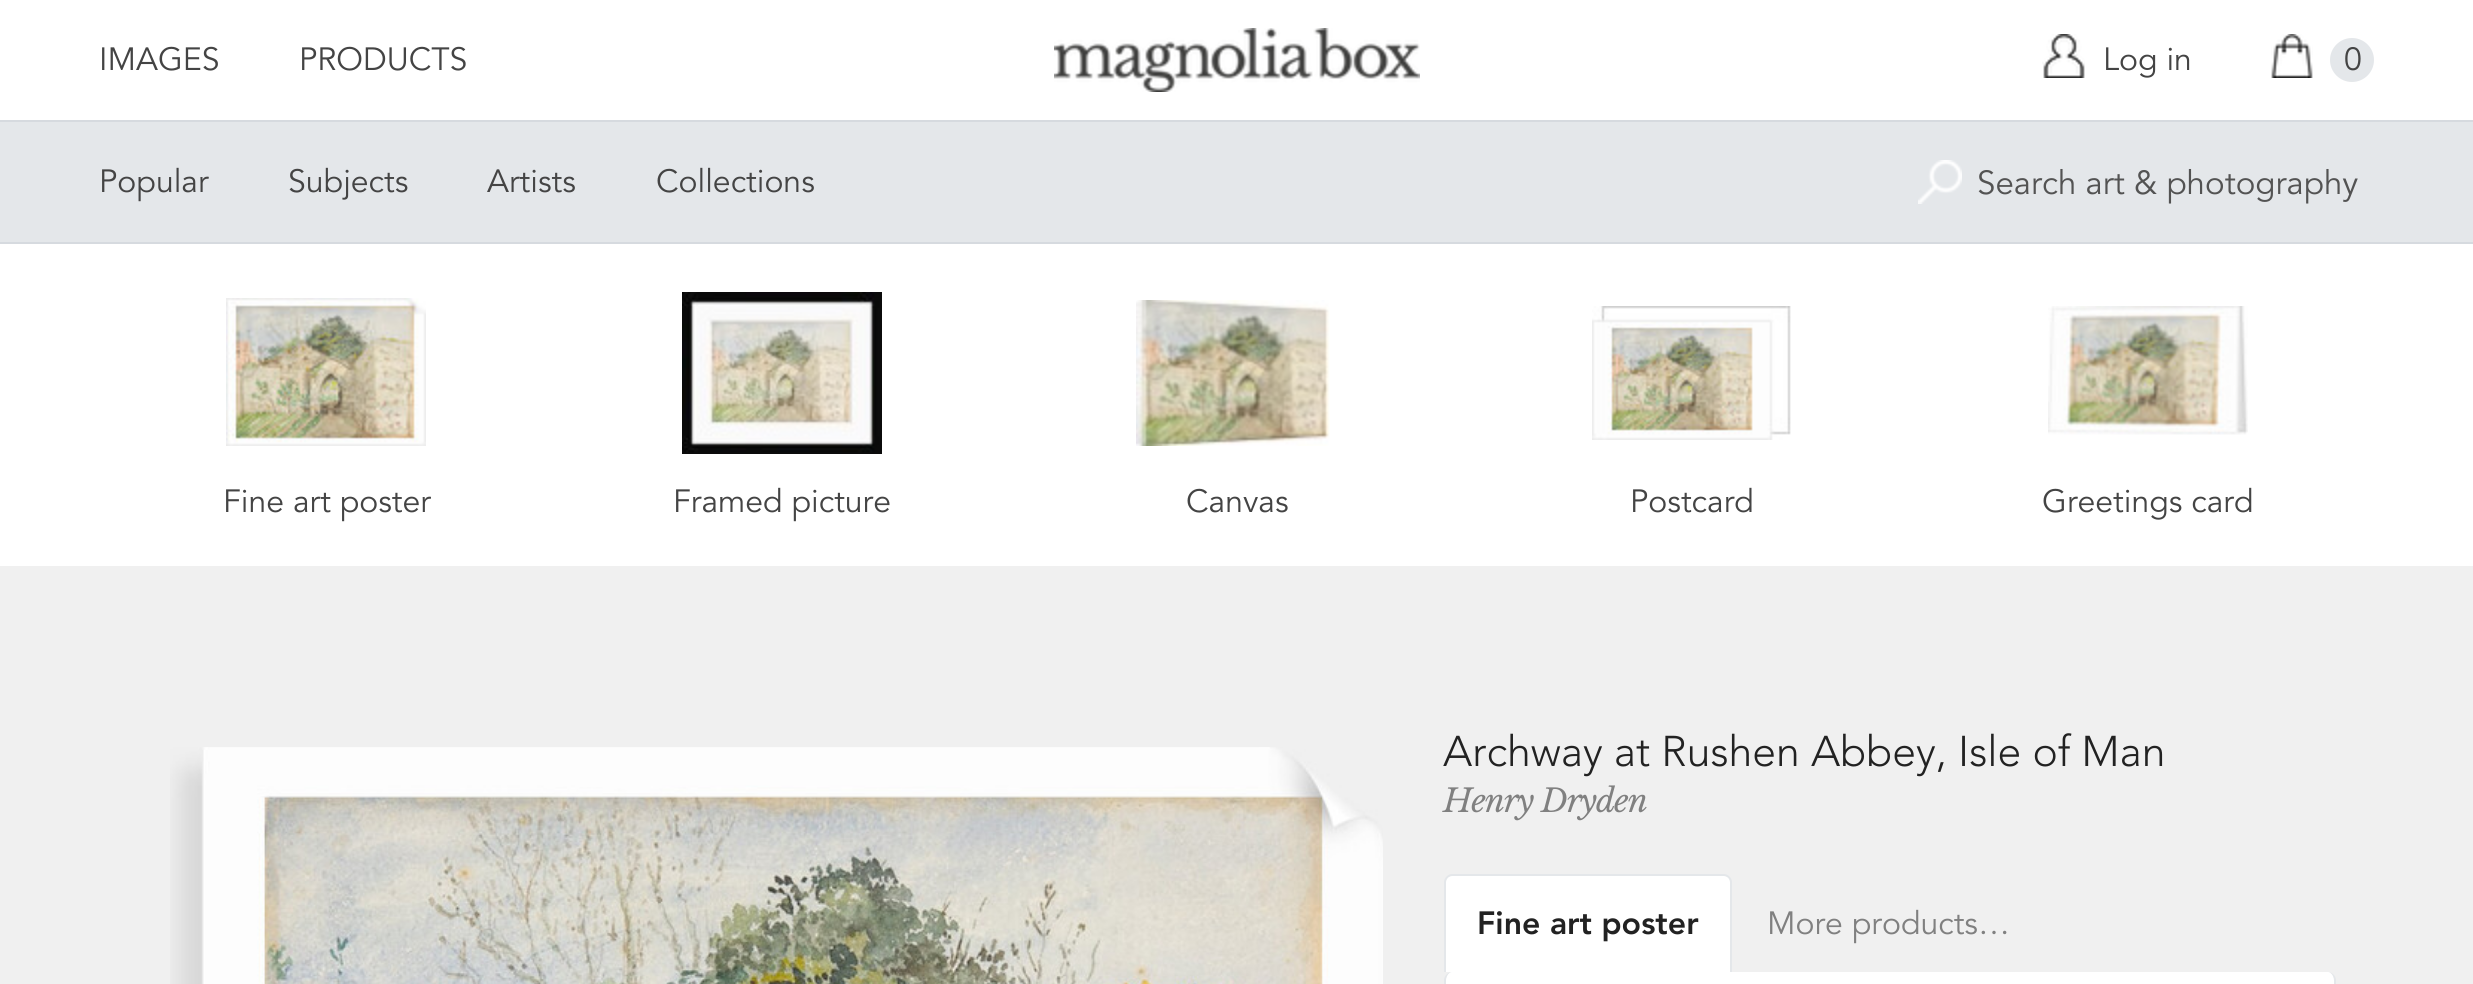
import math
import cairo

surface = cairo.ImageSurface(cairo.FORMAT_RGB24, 2473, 984)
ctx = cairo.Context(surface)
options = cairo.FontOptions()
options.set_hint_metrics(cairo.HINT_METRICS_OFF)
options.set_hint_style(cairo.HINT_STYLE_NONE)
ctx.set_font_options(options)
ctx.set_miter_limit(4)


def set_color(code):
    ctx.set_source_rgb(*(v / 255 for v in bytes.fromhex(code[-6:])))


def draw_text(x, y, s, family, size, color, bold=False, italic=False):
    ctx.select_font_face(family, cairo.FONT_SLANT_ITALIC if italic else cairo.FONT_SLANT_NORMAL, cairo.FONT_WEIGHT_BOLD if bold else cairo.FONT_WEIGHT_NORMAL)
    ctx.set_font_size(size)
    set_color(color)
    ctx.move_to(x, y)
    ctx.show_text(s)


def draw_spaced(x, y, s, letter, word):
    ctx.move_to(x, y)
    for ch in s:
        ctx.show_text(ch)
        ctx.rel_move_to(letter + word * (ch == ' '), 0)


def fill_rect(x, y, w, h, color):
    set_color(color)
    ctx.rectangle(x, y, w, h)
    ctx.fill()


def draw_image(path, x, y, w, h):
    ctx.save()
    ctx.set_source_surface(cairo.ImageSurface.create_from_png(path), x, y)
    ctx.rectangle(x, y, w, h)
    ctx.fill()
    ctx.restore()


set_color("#ffffff")
ctx.paint()
draw_text(99, 70, "IMAGES", "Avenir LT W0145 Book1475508", 32, "#444444")
draw_text(299, 70, "PRODUCTS", "Avenir LT W0145 Book1475508", 32, "#444444")
draw_image("assets/img1.png", 1054, 28, 366, 64)
draw_image("assets/img2.png", 2042, 34, 43, 44)
draw_text(2103, 70, "Log in", "Avenir LT W0145 Book1475508", 32, "#444444")
draw_image("assets/img3.png", 2271, 34, 42, 44)
set_color("#e4e7ea")
ctx.arc(2352, 60, 22, 0, 2 * math.pi)
ctx.fill()
draw_text(2344, 70, "0", "Avenir LT W0145 Book1475508", 32, "#444444")
fill_rect(0, 122, 2473, 120, "#e4e7ea")
fill_rect(0, 120, 2473, 2, "#d6dadf")
fill_rect(0, 242, 2473, 2, "#d6dadf")
draw_text(99, 192, "Popular", "Avenir LT W0145 Book1475508", 32, "#444444")
draw_text(288, 192, "Subjects", "Avenir LT W0145 Book1475508", 32, "#444444")
draw_text(487, 192, "Artists", "Avenir LT W0145 Book1475508", 32, "#444444")
draw_text(656, 192, "Collections", "Avenir LT W0145 Book1475508", 32, "#444444")
draw_image("assets/img4.png", 1918, 160, 44, 44)
draw_text(1977, 194, "Search art & photography", "Avenir LT W0145 Book1475508", 33.1, "#535353")
draw_image("assets/img5.png", 226, 298, 200, 148)
draw_text(223, 512, "Fine art poster", "Avenir LT W0145 Book1475508", 32, "#444444")
draw_image("assets/img6.png", 682, 292, 200, 162)
draw_text(673, 512, "Framed picture", "Avenir LT W0145 Book1475508", 32, "#444444")
draw_image("assets/img7.png", 1136, 300, 194, 146)
draw_text(1186, 512, "Canvas", "Avenir LT W0145 Book1475508", 32, "#444444")
draw_image("assets/img8.png", 1592, 306, 199, 134)
draw_text(1630, 512, "Postcard", "Avenir LT W0145 Book1475508", 32, "#444444")
draw_image("assets/img9.png", 2048, 306, 200, 129)
draw_text(2042, 512, "Greetings card", "Avenir LT W0145 Book1475508", 32, "#444444")
fill_rect(0, 566, 2473, 418, "#f0f0f0")
draw_image("assets/img10.png", 170, 747, 1213, 237)
draw_text(1443, 766, "Archway at Rushen Abbey, Isle of Man", "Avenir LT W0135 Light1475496 Light", 42.7, "#222222")
ctx.select_font_face("Libre Baskerville", cairo.FONT_SLANT_ITALIC)
ctx.set_font_size(32)
set_color("#808080")
draw_spaced(1443, 812, "Henry Dryden", -1, 0)
set_color("#ffffff")
ctx.new_path()
ctx.move_to(1452, 876)
ctx.line_to(1724, 876)
ctx.curve_to(1727.5, 876, 1730, 878.5, 1730, 882)
ctx.line_to(1730, 972)
ctx.line_to(1446, 972)
ctx.line_to(1446, 882)
ctx.curve_to(1446, 878.5, 1448.5, 876, 1452, 876)
ctx.close_path()
ctx.fill()
set_color("#e4e7ea")
ctx.set_fill_rule(cairo.FILL_RULE_EVEN_ODD)
ctx.new_path()
ctx.move_to(1452, 874)
ctx.line_to(1724, 874)
ctx.curve_to(1728, 874, 1732, 878, 1732, 882)
ctx.line_to(1732, 972)
ctx.line_to(1444, 972)
ctx.line_to(1444, 882)
ctx.curve_to(1444, 878, 1448, 874, 1452, 874)
ctx.close_path()
ctx.move_to(1452, 876)
ctx.line_to(1724, 876)
ctx.curve_to(1727, 876, 1730, 879, 1730, 882)
ctx.line_to(1730, 972)
ctx.line_to(1446, 972)
ctx.line_to(1446, 882)
ctx.curve_to(1446, 879, 1449, 876, 1452, 876)
ctx.close_path()
ctx.fill()
draw_text(1477, 934, "Fine art poster", "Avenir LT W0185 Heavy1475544 Black", 32, "#222222")
draw_text(1767, 934, "More products…", "Avenir LT W0145 Book1475508", 32, "#808080")
set_color("#ffffff")
ctx.set_fill_rule(cairo.FILL_RULE_WINDING)
ctx.new_path()
ctx.move_to(1452, 972)
ctx.line_to(2328, 972)
ctx.curve_to(2331, 972, 2334, 976, 2334, 980)
ctx.line_to(2334, 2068)
ctx.curve_to(2334, 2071, 2331, 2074, 2328, 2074)
ctx.line_to(1452, 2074)
ctx.curve_to(1449, 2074, 1446, 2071, 1446, 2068)
ctx.line_to(1446, 980)
ctx.curve_to(1446, 976, 1449, 972, 1452, 972)
ctx.close_path()
ctx.fill()
set_color("#e4e7ea")
ctx.set_fill_rule(cairo.FILL_RULE_EVEN_ODD)
ctx.new_path()
ctx.move_to(1452, 972)
ctx.line_to(2328, 972)
ctx.curve_to(2332, 972, 2336, 976, 2336, 980)
ctx.line_to(2336, 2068)
ctx.curve_to(2336, 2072, 2332, 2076, 2328, 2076)
ctx.line_to(1452, 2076)
ctx.curve_to(1448, 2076, 1444, 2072, 1444, 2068)
ctx.line_to(1444, 980)
ctx.curve_to(1444, 976, 1448, 972, 1452, 972)
ctx.close_path()
ctx.move_to(1452, 972)
ctx.line_to(2328, 972)
ctx.curve_to(2331, 972, 2334, 976, 2334, 980)
ctx.line_to(2334, 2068)
ctx.curve_to(2334, 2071, 2331, 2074, 2328, 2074)
ctx.line_to(1452, 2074)
ctx.curve_to(1449, 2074, 1446, 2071, 1446, 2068)
ctx.line_to(1446, 980)
ctx.curve_to(1446, 976, 1449, 972, 1452, 972)
ctx.close_path()
ctx.fill()
surface.write_to_png("output.png")
